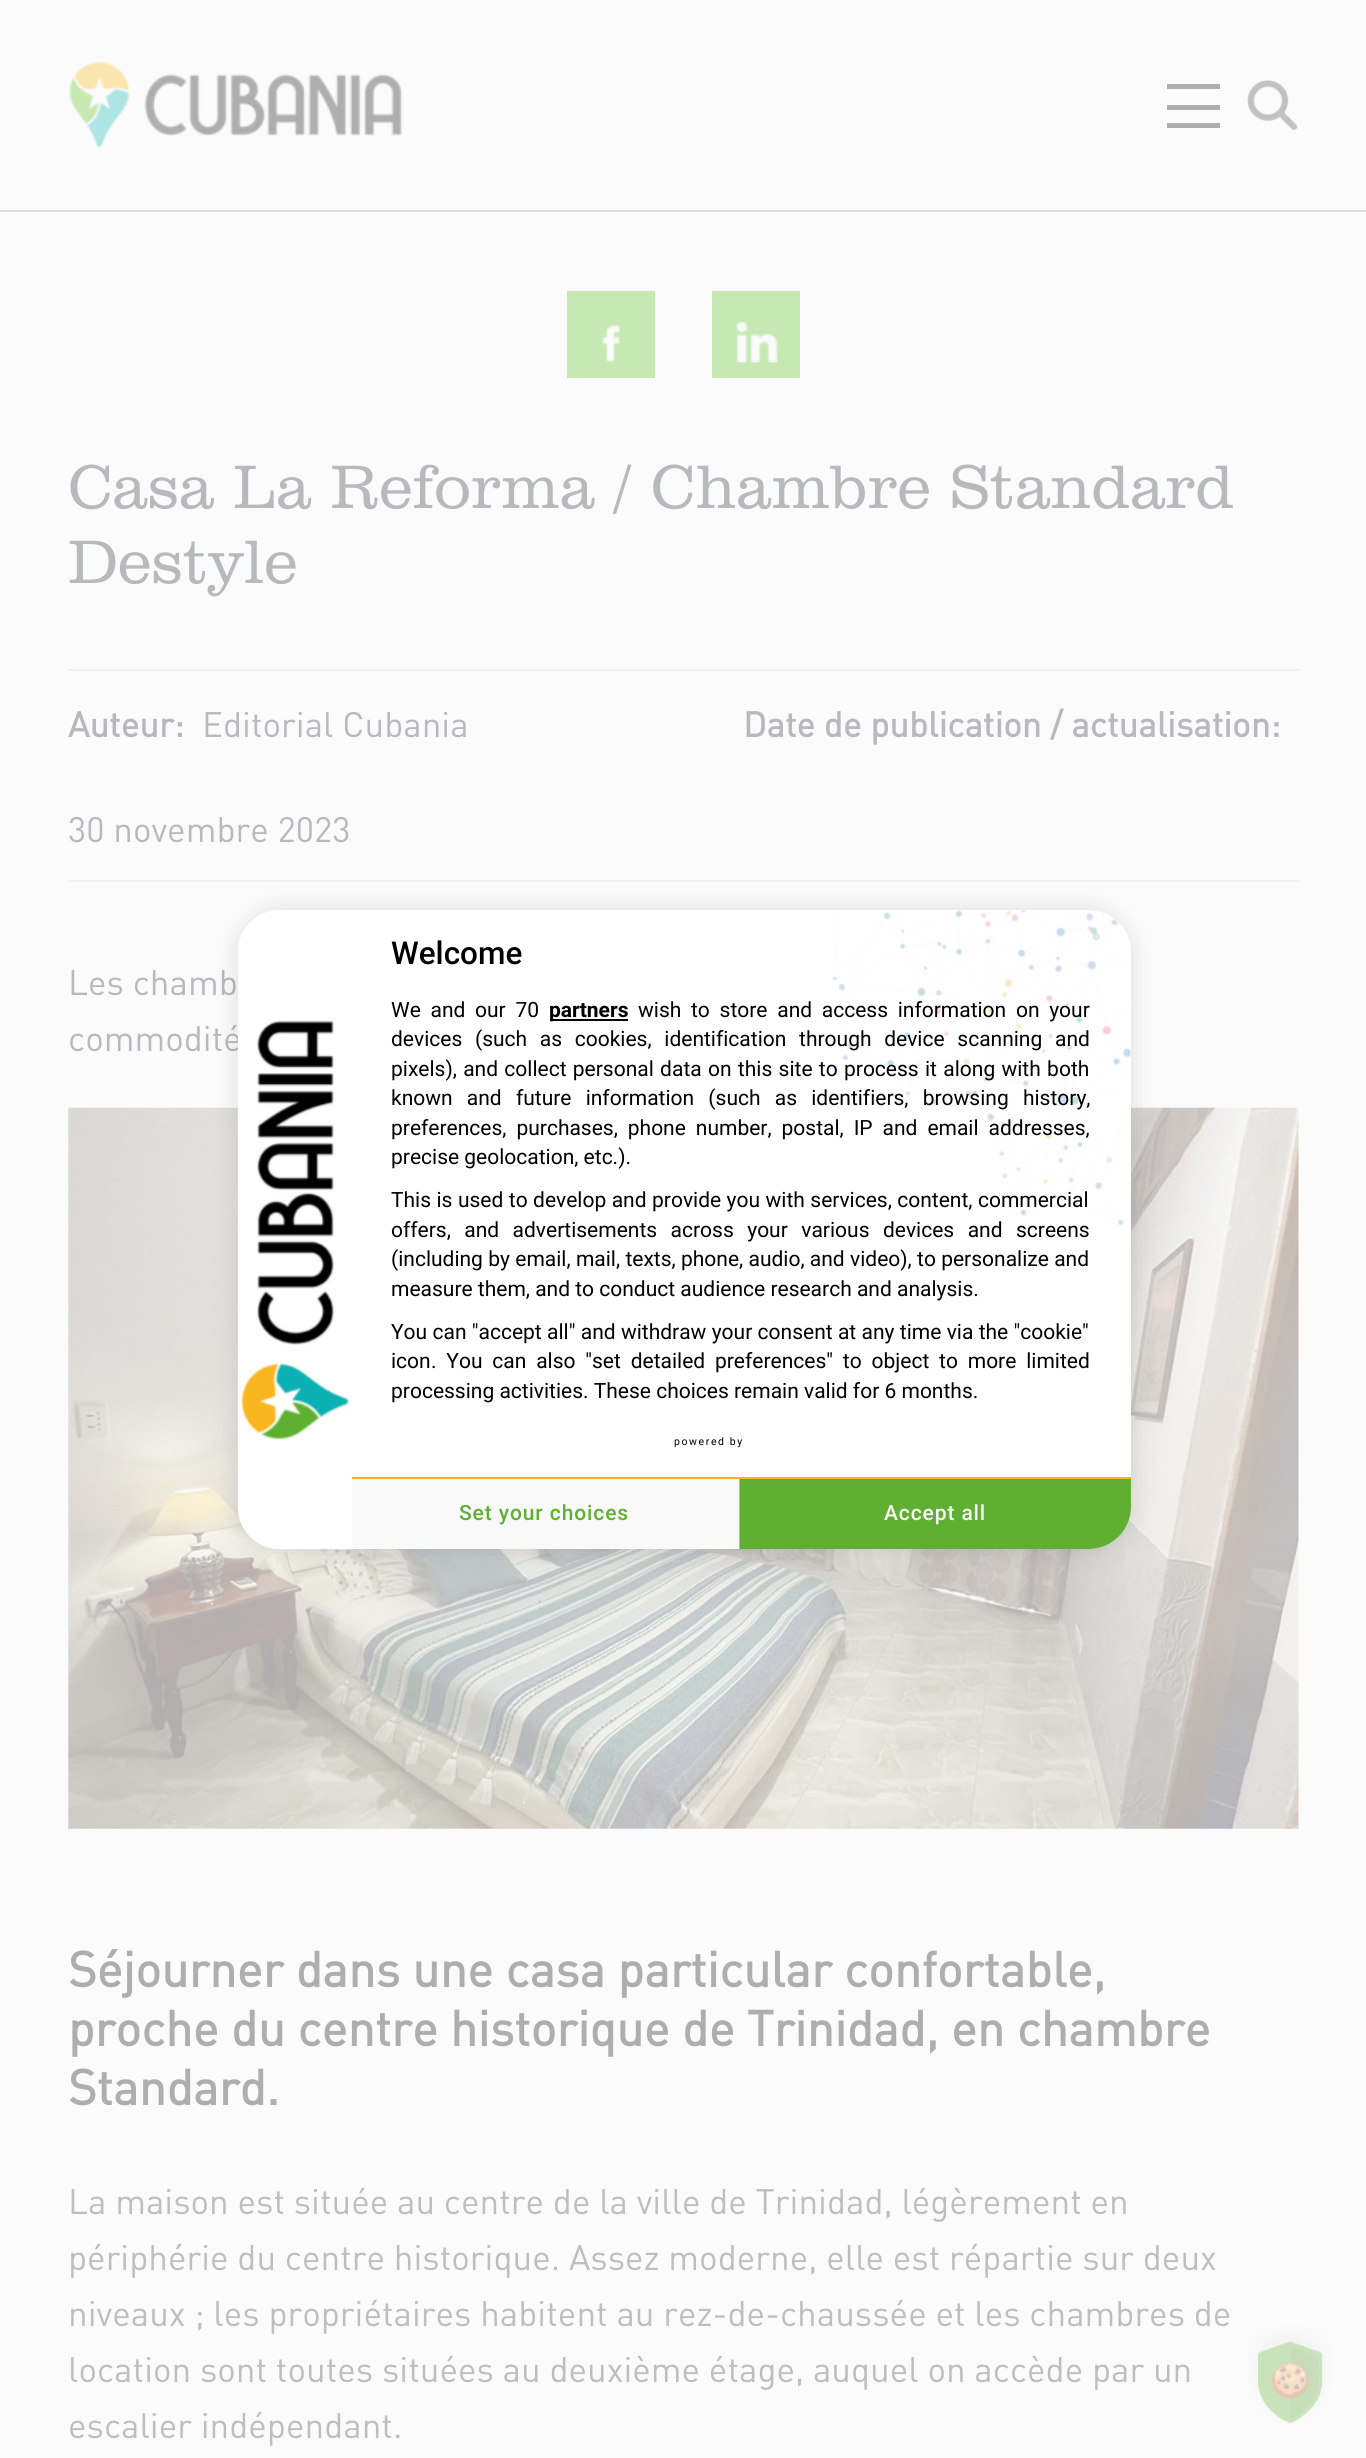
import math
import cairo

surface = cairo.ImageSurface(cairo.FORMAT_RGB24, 1366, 2458)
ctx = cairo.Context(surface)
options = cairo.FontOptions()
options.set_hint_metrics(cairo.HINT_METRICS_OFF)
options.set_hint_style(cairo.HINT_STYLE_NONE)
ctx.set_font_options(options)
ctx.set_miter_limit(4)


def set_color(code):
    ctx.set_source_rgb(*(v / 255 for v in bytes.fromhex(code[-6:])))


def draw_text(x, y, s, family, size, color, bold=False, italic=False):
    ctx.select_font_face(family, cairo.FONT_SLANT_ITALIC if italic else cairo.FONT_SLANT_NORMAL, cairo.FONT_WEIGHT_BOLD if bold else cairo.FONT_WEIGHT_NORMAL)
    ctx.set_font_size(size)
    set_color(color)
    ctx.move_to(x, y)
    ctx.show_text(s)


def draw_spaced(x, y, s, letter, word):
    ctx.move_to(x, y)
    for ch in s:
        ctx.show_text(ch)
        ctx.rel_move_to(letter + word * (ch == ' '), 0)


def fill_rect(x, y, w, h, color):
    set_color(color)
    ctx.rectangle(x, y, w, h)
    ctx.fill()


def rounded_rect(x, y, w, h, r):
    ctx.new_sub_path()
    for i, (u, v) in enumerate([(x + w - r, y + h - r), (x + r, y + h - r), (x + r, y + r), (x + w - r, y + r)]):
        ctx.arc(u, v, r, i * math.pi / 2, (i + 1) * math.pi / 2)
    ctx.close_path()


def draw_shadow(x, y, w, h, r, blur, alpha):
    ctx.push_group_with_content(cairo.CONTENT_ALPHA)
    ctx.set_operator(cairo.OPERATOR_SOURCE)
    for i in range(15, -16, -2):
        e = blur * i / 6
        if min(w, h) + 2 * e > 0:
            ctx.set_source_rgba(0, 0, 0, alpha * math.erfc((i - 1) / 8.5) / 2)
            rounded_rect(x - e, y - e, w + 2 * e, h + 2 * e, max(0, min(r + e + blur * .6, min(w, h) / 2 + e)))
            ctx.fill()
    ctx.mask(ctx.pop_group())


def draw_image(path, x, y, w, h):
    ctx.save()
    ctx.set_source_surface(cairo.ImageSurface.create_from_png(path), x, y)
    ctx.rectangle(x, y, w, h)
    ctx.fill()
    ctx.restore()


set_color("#fbfbfb")
ctx.paint()
draw_image("assets/img1.png", 68, 61, 335, 87)
fill_rect(1167, 84, 53, 5, "#aeaeae")
fill_rect(1167, 123, 53, 5, "#aeaeae")
fill_rect(1167, 105, 53, 5, "#aeaeae")
draw_image("assets/img2.png", 1247, 79, 51, 52)
fill_rect(0, 210, 1366, 2, "#dcdcdc")
fill_rect(567, 291, 88, 87, "#c6e9b4")
draw_image("assets/img3.png", 601, 325, 19, 38)
fill_rect(712, 291, 88, 87, "#c6e9b4")
draw_image("assets/img4.png", 736, 321, 42, 42)
draw_text(68, 508, "Casa La Reforma / Chambre Standard", "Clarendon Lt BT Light", 63, "#b8b9bb")
draw_text(68, 583, "Destyle", "Clarendon Lt BT Light", 63, "#b8b9bb")
fill_rect(68, 669, 1231, 2, "#f1f1f1")
fill_rect(68, 880, 1231, 2, "#f1f1f1")
draw_text(68, 737, "Auteur:", "DIN", 35, "#b8b9bb", bold=True)
draw_text(202, 737, "Editorial Cubania", "DIN", 35, "#b8b9bb")
draw_text(743, 737, "Date de publication / actualisation:", "DIN", 35, "#b8b9bb", bold=True)
draw_text(68, 842, "30 novembre 2023", "DIN", 35, "#b8b9bb")
draw_text(68, 995, "Les chamb", "DIN", 35, "#b8b9bb")
draw_text(68, 1051, "commodité", "DIN", 35, "#b8b9bb")
draw_image("assets/img5.png", 68, 1107, 1231, 722)
draw_text(68, 1987, "Séjourner dans une casa particular confortable,", "DIN", 49, "#aeaeae", bold=True)
draw_text(68, 2046, "proche du centre historique de Trinidad, en chambre", "DIN", 49, "#aeaeae", bold=True)
draw_text(68, 2105, "Standard.", "DIN", 49, "#aeaeae", bold=True)
draw_text(68, 2214, "La maison est située au centre de la ville de Trinidad, légèrement en", "DIN", 35, "#bebebe")
draw_text(68, 2270, "périphérie du centre historique. Assez moderne, elle est répartie sur deux", "DIN", 35, "#bebebe")
draw_text(68, 2326, "niveaux ; les propriétaires habitent au rez-de-chaussée et les chambres de", "DIN", 35, "#bebebe")
draw_text(68, 2382, "location sont toutes situées au deuxième étage, auquel on accède par un", "DIN", 35, "#bebebe")
draw_text(68, 2438, "escalier indépendant.", "DIN", 35, "#bebebe")
set_color("#000000")
draw_shadow(238, 910, 893, 639, 42, 13, 0.12)
set_color("#ffffff")
rounded_rect(238, 910, 893, 639, 42)
ctx.fill()
ctx.new_path()
ctx.move_to(280, 910)
ctx.line_to(352, 910)
ctx.line_to(352, 1549)
ctx.line_to(280, 1549)
ctx.curve_to(257, 1549, 238, 1530, 238, 1507)
ctx.line_to(238, 952)
ctx.curve_to(238, 929, 257, 910, 280, 910)
ctx.close_path()
ctx.fill()
draw_image("assets/img6.png", 237, 1020, 115, 530)
draw_image("assets/img7.png", 832, 910, 299, 316)
draw_text(391, 964, "Welcome", "Roboto Medium", 31.5, "#000000")
ctx.select_font_face("Roboto")
ctx.set_font_size(21)
draw_spaced(391, 1017, "We and our 70", 0, 4.5)
fill_rect(550, 1019, 78, 2, "#000000")
draw_text(549, 1017, "partners", "Roboto", 21, "#000000", bold=True)
ctx.select_font_face("Roboto")
draw_spaced(638, 1017, "wish to store and access information on your", 0, 4.5)
draw_spaced(391, 1046, "devices (such as cookies, identification through device scanning and", 0, 7.5)
draw_spaced(391, 1076, "pixels), and collect personal data on this site to process it along with both", 0, 1.1)
draw_spaced(391, 1105, "known and future information (such as identifiers, browsing history,", 0, 9)
draw_spaced(391, 1135, "preferences, purchases, phone number, postal, IP and email addresses,", 0, 4.75)
draw_text(391, 1164, "precise geolocation, etc.).", "Roboto", 21, "#000000")
draw_spaced(391, 1207, "This is used to develop and provide you with services, content, commercial", 0, 0.25)
draw_spaced(391, 1237, "offers, and advertisements across your various devices and screens", 0, 8.25)
draw_spaced(391, 1266, "(including by email, mail, texts, phone, audio, and video), to personalize and", 0, 0.1)
draw_text(391, 1296, "measure them, and to conduct audience research and analysis.", "Roboto", 21, "#000000")
draw_spaced(391, 1339, "You can \"accept all\" and withdraw your consent at any time via the \"cookie\"", 0, 0.1)
draw_text(391, 1368, "icon", "Roboto", 21, "#000000")
draw_spaced(431, 1368, ". You can also \"set detailed preferences\" to object to more limited", 0, 4.6)
draw_text(391, 1398, "processing activities. These choices remain valid for 6 months.", "Roboto", 21, "#000000")
ctx.set_font_size(10.5)
draw_spaced(674, 1445, "powered by", 1.6, 0)
fill_rect(352, 1479, 387, 70, "#f9f9f9")
fill_rect(352, 1477, 388, 2, "#f3b324")
fill_rect(739, 1477, 1, 72, "#f3b324")
ctx.select_font_face("Roboto Medium")
ctx.set_font_size(21)
set_color("#5faf33")
draw_spaced(459, 1520, "Set your choices", 0.9, 0)
ctx.new_path()
ctx.move_to(740, 1477)
ctx.line_to(1131, 1477)
ctx.line_to(1131, 1507)
ctx.curve_to(1131, 1530, 1112, 1549, 1089, 1549)
ctx.line_to(740, 1549)
ctx.close_path()
ctx.fill()
fill_rect(740, 1477, 391, 2, "#f3b324")
set_color("#f9f9f9")
draw_spaced(884, 1520, "Accept all", 0.9, 0)
draw_image("assets/img8.png", 1248, 2326, 84, 98)
surface.write_to_png("output.png")
